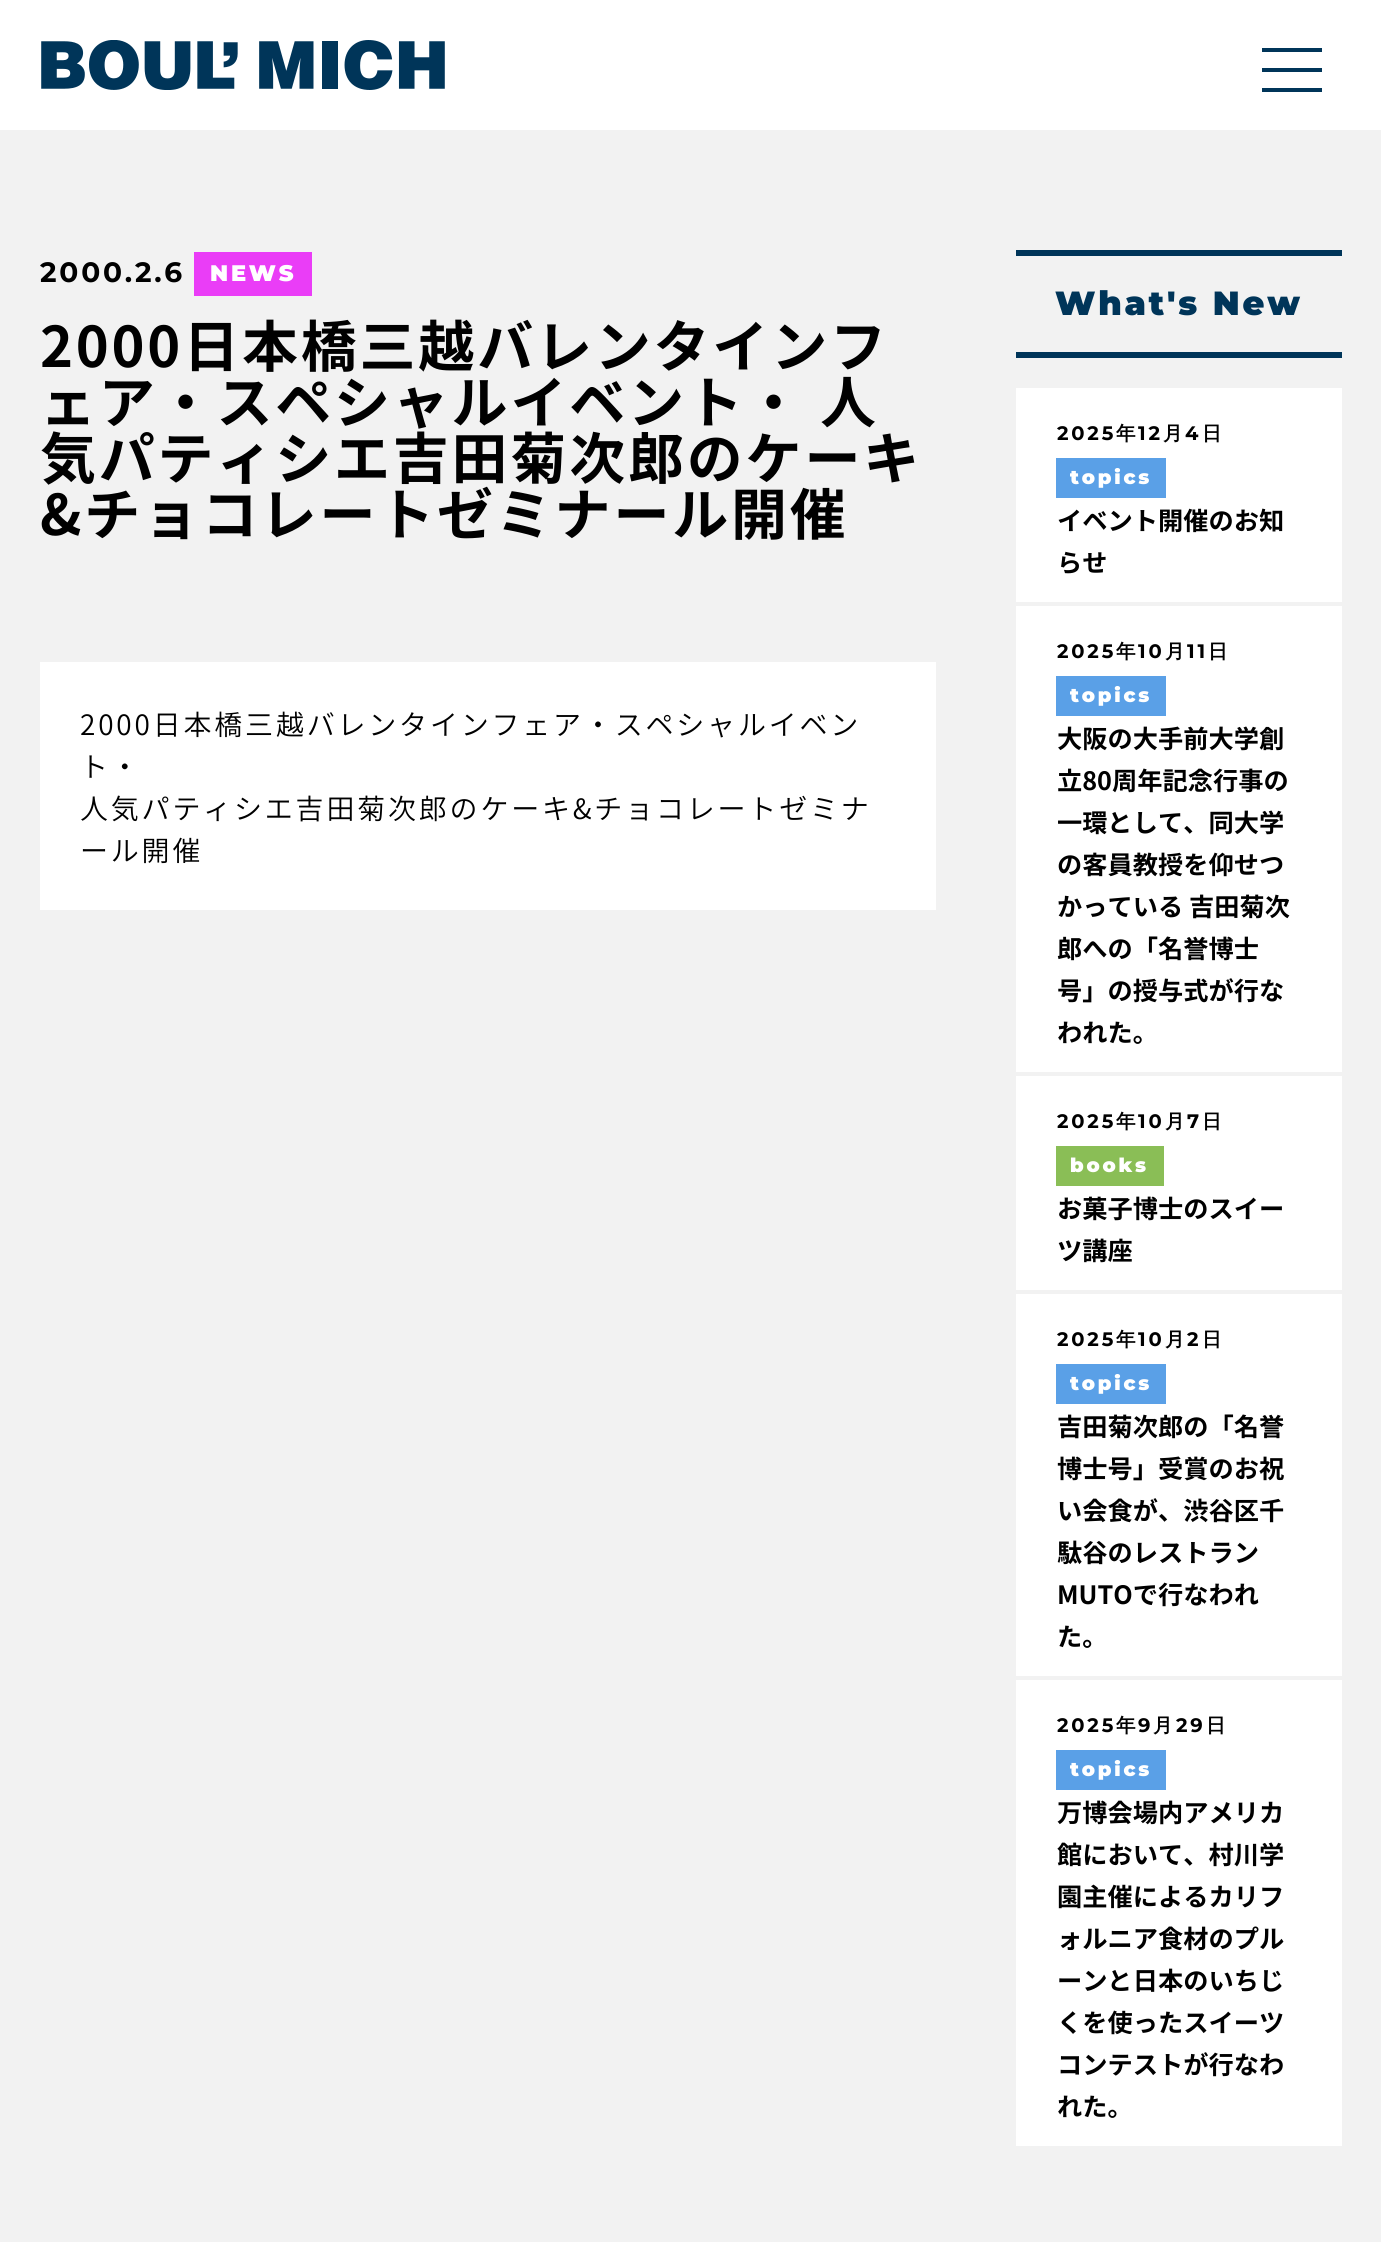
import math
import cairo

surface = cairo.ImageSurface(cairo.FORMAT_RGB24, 1381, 2242)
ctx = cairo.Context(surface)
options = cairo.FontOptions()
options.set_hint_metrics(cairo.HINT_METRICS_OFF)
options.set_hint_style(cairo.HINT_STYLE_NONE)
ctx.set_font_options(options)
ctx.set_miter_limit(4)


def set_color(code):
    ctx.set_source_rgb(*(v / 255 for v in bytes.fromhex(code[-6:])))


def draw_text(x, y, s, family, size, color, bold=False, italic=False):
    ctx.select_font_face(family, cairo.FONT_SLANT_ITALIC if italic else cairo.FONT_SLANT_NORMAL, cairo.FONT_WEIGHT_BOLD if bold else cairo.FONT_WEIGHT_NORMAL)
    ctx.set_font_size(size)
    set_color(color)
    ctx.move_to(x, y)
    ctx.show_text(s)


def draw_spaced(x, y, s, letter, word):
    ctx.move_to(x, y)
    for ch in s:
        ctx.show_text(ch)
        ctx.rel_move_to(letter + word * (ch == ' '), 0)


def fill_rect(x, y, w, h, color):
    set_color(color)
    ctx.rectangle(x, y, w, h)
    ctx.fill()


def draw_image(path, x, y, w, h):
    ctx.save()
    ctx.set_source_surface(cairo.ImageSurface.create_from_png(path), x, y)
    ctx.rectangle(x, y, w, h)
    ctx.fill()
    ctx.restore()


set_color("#ffffff")
ctx.paint()
draw_image("assets/img1.png", 41, 40, 404, 50)
fill_rect(1262, 68, 60, 4, "#003559")
fill_rect(1262, 48, 60, 4, "#003559")
fill_rect(1262, 88, 60, 4, "#003559")
fill_rect(0, 130, 1381, 2112, "#f2f2f2")
ctx.select_font_face("Montserrat", cairo.FONT_SLANT_NORMAL, cairo.FONT_WEIGHT_BOLD)
ctx.set_font_size(28)
set_color("#000000")
draw_spaced(40, 282, "2000.2.6", 2.8, 0)
fill_rect(194, 252, 118, 44, "#ea3df7")
ctx.select_font_face("Montserrat Black")
ctx.set_font_size(22.5)
set_color("#ffffff")
draw_spaced(210, 281, "NEWS", 2.8, 0)
ctx.select_font_face("Noto Sans JP", cairo.FONT_SLANT_NORMAL, cairo.FONT_WEIGHT_BOLD)
ctx.set_font_size(56)
set_color("#000000")
draw_spaced(40, 367, "2000日本橋三越バレンタインフ", 2.8, 0)
draw_spaced(40, 423, "ェア・スペシャルイベント・ 人", 2.8, 0)
draw_spaced(40, 479, "気パティシエ吉田菊次郎のケーキ", 2.8, 0)
draw_spaced(40, 535, "&チョコレートゼミナール開催", 2.8, 0)
fill_rect(40, 662, 896, 248, "#ffffff")
ctx.select_font_face("Noto Sans JP Light")
ctx.set_font_size(28)
set_color("#000000")
draw_spaced(80, 735, "2000日本橋三越バレンタインフェア・スペシャルイベン", 2.8, 0)
draw_spaced(80, 777, "ト・", 2.8, 0)
draw_spaced(80, 819, "人気パティシエ吉田菊次郎のケーキ&チョコレートゼミナ", 2.8, 0)
draw_spaced(80, 861, "ール開催", 2.8, 0)
fill_rect(1016, 250, 326, 6, "#003559")
fill_rect(1016, 352, 326, 6, "#003559")
ctx.select_font_face("Montserrat Black")
ctx.set_font_size(33.5)
draw_spaced(1055, 315, "What's New", 2.8, 0)
fill_rect(1016, 388, 326, 214, "#ffffff")
ctx.select_font_face("Montserrat", cairo.FONT_SLANT_NORMAL, cairo.FONT_WEIGHT_BOLD)
ctx.set_font_size(19.5)
set_color("#000000")
draw_spaced(1057, 440, "2025", 2.8, 0)
ctx.select_font_face("WenQuanYi Zen Hei", cairo.FONT_SLANT_NORMAL, cairo.FONT_WEIGHT_BOLD)
draw_spaced(1116, 440, "年", 2.8, 0)
ctx.select_font_face("Montserrat", cairo.FONT_SLANT_NORMAL, cairo.FONT_WEIGHT_BOLD)
draw_spaced(1138, 440, "12", 2.8, 0)
ctx.select_font_face("WenQuanYi Zen Hei", cairo.FONT_SLANT_NORMAL, cairo.FONT_WEIGHT_BOLD)
draw_spaced(1163, 440, "月", 2.8, 0)
ctx.select_font_face("Montserrat", cairo.FONT_SLANT_NORMAL, cairo.FONT_WEIGHT_BOLD)
draw_spaced(1185, 440, "4", 2.8, 0)
ctx.select_font_face("WenQuanYi Zen Hei", cairo.FONT_SLANT_NORMAL, cairo.FONT_WEIGHT_BOLD)
draw_spaced(1202, 440, "日", 2.8, 0)
fill_rect(1056, 458, 110, 40, "#5aa0e7")
ctx.select_font_face("Montserrat Black")
set_color("#ffffff")
draw_spaced(1070, 484, "topics", 2.8, 0)
draw_text(1057, 530, "イベント開催のお知", "Noto Sans JP", 25.25, "#000000", bold=True)
draw_text(1057, 572, "らせ", "Noto Sans JP", 25.25, "#000000", bold=True)
fill_rect(1016, 606, 326, 466, "#ffffff")
ctx.select_font_face("Montserrat", cairo.FONT_SLANT_NORMAL, cairo.FONT_WEIGHT_BOLD)
ctx.set_font_size(19.5)
set_color("#000000")
draw_spaced(1057, 658, "2025", 2.8, 0)
ctx.select_font_face("WenQuanYi Zen Hei", cairo.FONT_SLANT_NORMAL, cairo.FONT_WEIGHT_BOLD)
draw_spaced(1116, 658, "年", 2.8, 0)
ctx.select_font_face("Montserrat", cairo.FONT_SLANT_NORMAL, cairo.FONT_WEIGHT_BOLD)
draw_spaced(1138, 658, "10", 2.8, 0)
ctx.select_font_face("WenQuanYi Zen Hei", cairo.FONT_SLANT_NORMAL, cairo.FONT_WEIGHT_BOLD)
draw_spaced(1165, 658, "月", 2.8, 0)
ctx.select_font_face("Montserrat", cairo.FONT_SLANT_NORMAL, cairo.FONT_WEIGHT_BOLD)
draw_spaced(1187, 658, "11", 2.8, 0)
ctx.select_font_face("WenQuanYi Zen Hei", cairo.FONT_SLANT_NORMAL, cairo.FONT_WEIGHT_BOLD)
draw_spaced(1208, 658, "日", 2.8, 0)
fill_rect(1056, 676, 110, 40, "#5aa0e7")
ctx.select_font_face("Montserrat Black")
set_color("#ffffff")
draw_spaced(1070, 702, "topics", 2.8, 0)
draw_text(1057, 748, "大阪の大手前大学創", "Noto Sans JP", 25.25, "#000000", bold=True)
draw_text(1057, 790, "立80周年記念行事の", "Noto Sans JP", 25.25, "#000000", bold=True)
draw_text(1057, 832, "一環として、同大学", "Noto Sans JP", 25.25, "#000000", bold=True)
draw_text(1057, 874, "の客員教授を仰せつ", "Noto Sans JP", 25.25, "#000000", bold=True)
draw_text(1057, 916, "かっている 吉田菊次", "Noto Sans JP", 25.25, "#000000", bold=True)
draw_text(1057, 958, "郎への「名誉博士", "Noto Sans JP", 25.25, "#000000", bold=True)
draw_text(1057, 1000, "号」の授与式が行な", "Noto Sans JP", 25.25, "#000000", bold=True)
draw_text(1057, 1042, "われた。", "Noto Sans JP", 25.25, "#000000", bold=True)
fill_rect(1016, 1076, 326, 214, "#ffffff")
ctx.select_font_face("Montserrat", cairo.FONT_SLANT_NORMAL, cairo.FONT_WEIGHT_BOLD)
ctx.set_font_size(19.5)
set_color("#000000")
draw_spaced(1057, 1128, "2025", 2.8, 0)
ctx.select_font_face("WenQuanYi Zen Hei", cairo.FONT_SLANT_NORMAL, cairo.FONT_WEIGHT_BOLD)
draw_spaced(1116, 1128, "年", 2.8, 0)
ctx.select_font_face("Montserrat", cairo.FONT_SLANT_NORMAL, cairo.FONT_WEIGHT_BOLD)
draw_spaced(1138, 1128, "10", 2.8, 0)
ctx.select_font_face("WenQuanYi Zen Hei", cairo.FONT_SLANT_NORMAL, cairo.FONT_WEIGHT_BOLD)
draw_spaced(1165, 1128, "月", 2.8, 0)
ctx.select_font_face("Montserrat", cairo.FONT_SLANT_NORMAL, cairo.FONT_WEIGHT_BOLD)
draw_spaced(1187, 1128, "7", 2.8, 0)
ctx.select_font_face("WenQuanYi Zen Hei", cairo.FONT_SLANT_NORMAL, cairo.FONT_WEIGHT_BOLD)
draw_spaced(1202, 1128, "日", 2.8, 0)
fill_rect(1056, 1146, 108, 40, "#8abe56")
ctx.select_font_face("Montserrat Black")
set_color("#ffffff")
draw_spaced(1070, 1172, "books", 2.8, 0)
draw_text(1057, 1218, "お菓子博士のスイー", "Noto Sans JP", 25.25, "#000000", bold=True)
draw_text(1057, 1260, "ツ講座", "Noto Sans JP", 25.25, "#000000", bold=True)
fill_rect(1016, 1294, 326, 382, "#ffffff")
ctx.select_font_face("Montserrat", cairo.FONT_SLANT_NORMAL, cairo.FONT_WEIGHT_BOLD)
ctx.set_font_size(19.5)
set_color("#000000")
draw_spaced(1057, 1346, "2025", 2.8, 0)
ctx.select_font_face("WenQuanYi Zen Hei", cairo.FONT_SLANT_NORMAL, cairo.FONT_WEIGHT_BOLD)
draw_spaced(1116, 1346, "年", 2.8, 0)
ctx.select_font_face("Montserrat", cairo.FONT_SLANT_NORMAL, cairo.FONT_WEIGHT_BOLD)
draw_spaced(1138, 1346, "10", 2.8, 0)
ctx.select_font_face("WenQuanYi Zen Hei", cairo.FONT_SLANT_NORMAL, cairo.FONT_WEIGHT_BOLD)
draw_spaced(1165, 1346, "月", 2.8, 0)
ctx.select_font_face("Montserrat", cairo.FONT_SLANT_NORMAL, cairo.FONT_WEIGHT_BOLD)
draw_spaced(1187, 1346, "2", 2.8, 0)
ctx.select_font_face("WenQuanYi Zen Hei", cairo.FONT_SLANT_NORMAL, cairo.FONT_WEIGHT_BOLD)
draw_spaced(1202, 1346, "日", 2.8, 0)
fill_rect(1056, 1364, 110, 40, "#5aa0e7")
ctx.select_font_face("Montserrat Black")
set_color("#ffffff")
draw_spaced(1070, 1390, "topics", 2.8, 0)
draw_text(1057, 1436, "吉田菊次郎の「名誉", "Noto Sans JP", 25.25, "#000000", bold=True)
draw_text(1057, 1478, "博士号」受賞のお祝", "Noto Sans JP", 25.25, "#000000", bold=True)
draw_text(1057, 1520, "い会食が、渋谷区千", "Noto Sans JP", 25.25, "#000000", bold=True)
draw_text(1057, 1562, "駄谷のレストラン", "Noto Sans JP", 25.25, "#000000", bold=True)
draw_text(1057, 1604, "MUTOで行なわれ", "Noto Sans JP", 25.25, "#000000", bold=True)
draw_text(1057, 1646, "た。", "Noto Sans JP", 25.25, "#000000", bold=True)
fill_rect(1016, 1680, 326, 466, "#ffffff")
ctx.select_font_face("Montserrat", cairo.FONT_SLANT_NORMAL, cairo.FONT_WEIGHT_BOLD)
ctx.set_font_size(19.5)
set_color("#000000")
draw_spaced(1057, 1732, "2025", 2.8, 0)
ctx.select_font_face("WenQuanYi Zen Hei", cairo.FONT_SLANT_NORMAL, cairo.FONT_WEIGHT_BOLD)
draw_spaced(1116, 1732, "年", 2.8, 0)
ctx.select_font_face("Montserrat", cairo.FONT_SLANT_NORMAL, cairo.FONT_WEIGHT_BOLD)
draw_spaced(1138, 1732, "9", 2.8, 0)
ctx.select_font_face("WenQuanYi Zen Hei", cairo.FONT_SLANT_NORMAL, cairo.FONT_WEIGHT_BOLD)
draw_spaced(1153, 1732, "月", 2.8, 0)
ctx.select_font_face("Montserrat", cairo.FONT_SLANT_NORMAL, cairo.FONT_WEIGHT_BOLD)
draw_spaced(1176, 1732, "29", 2.8, 0)
ctx.select_font_face("WenQuanYi Zen Hei", cairo.FONT_SLANT_NORMAL, cairo.FONT_WEIGHT_BOLD)
draw_spaced(1206, 1732, "日", 2.8, 0)
fill_rect(1056, 1750, 110, 40, "#5aa0e7")
ctx.select_font_face("Montserrat Black")
set_color("#ffffff")
draw_spaced(1070, 1776, "topics", 2.8, 0)
draw_text(1057, 1822, "万博会場内アメリカ", "Noto Sans JP", 25.25, "#000000", bold=True)
draw_text(1057, 1864, "館において、村川学", "Noto Sans JP", 25.25, "#000000", bold=True)
draw_text(1057, 1906, "園主催によるカリフ", "Noto Sans JP", 25.25, "#000000", bold=True)
draw_text(1057, 1948, "ォルニア食材のプル", "Noto Sans JP", 25.25, "#000000", bold=True)
draw_text(1057, 1990, "ーンと日本のいちじ", "Noto Sans JP", 25.25, "#000000", bold=True)
draw_text(1057, 2032, "くを使ったスイーツ", "Noto Sans JP", 25.25, "#000000", bold=True)
draw_text(1057, 2074, "コンテストが行なわ", "Noto Sans JP", 25.25, "#000000", bold=True)
draw_text(1057, 2116, "れた。", "Noto Sans JP", 25.25, "#000000", bold=True)
surface.write_to_png("output.png")
